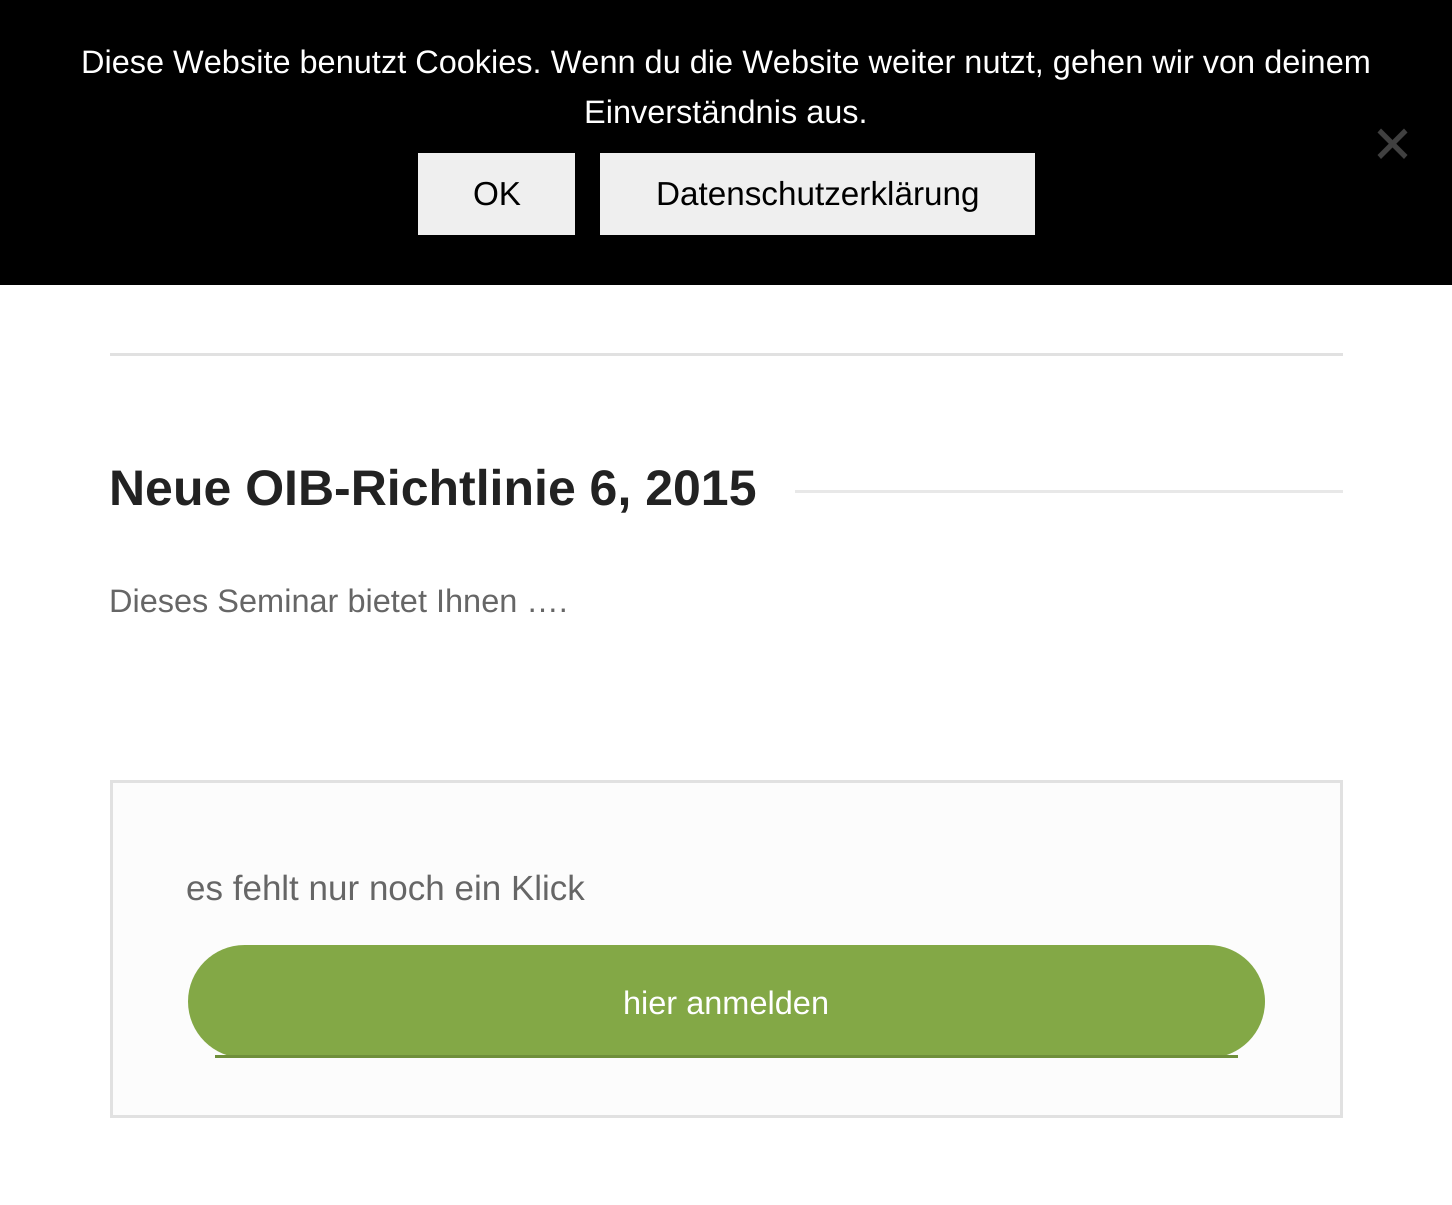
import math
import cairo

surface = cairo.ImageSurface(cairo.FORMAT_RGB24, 1452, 1205)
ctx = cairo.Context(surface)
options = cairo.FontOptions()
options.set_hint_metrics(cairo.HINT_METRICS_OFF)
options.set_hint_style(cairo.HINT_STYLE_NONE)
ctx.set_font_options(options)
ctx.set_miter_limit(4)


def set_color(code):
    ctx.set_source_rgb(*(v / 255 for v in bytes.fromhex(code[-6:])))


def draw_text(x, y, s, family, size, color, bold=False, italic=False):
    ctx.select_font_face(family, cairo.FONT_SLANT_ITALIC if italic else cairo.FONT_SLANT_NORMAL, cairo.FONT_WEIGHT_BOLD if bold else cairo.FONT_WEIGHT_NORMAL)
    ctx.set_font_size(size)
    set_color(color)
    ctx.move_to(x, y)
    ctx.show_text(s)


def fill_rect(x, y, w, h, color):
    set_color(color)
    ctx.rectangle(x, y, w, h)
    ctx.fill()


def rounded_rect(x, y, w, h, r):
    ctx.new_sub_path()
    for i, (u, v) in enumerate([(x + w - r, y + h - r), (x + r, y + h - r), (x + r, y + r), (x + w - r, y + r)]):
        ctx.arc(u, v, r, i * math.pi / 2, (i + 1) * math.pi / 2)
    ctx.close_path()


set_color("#ffffff")
ctx.paint()
fill_rect(0, 0, 1452, 285, "#000000")
draw_text(81, 73, "Diese Website benutzt Cookies. Wenn du die Website weiter nutzt, gehen wir von deinem", "Liberation Sans", 32.5, "#ffffff")
draw_text(584, 123, "Einverständnis aus.", "Liberation Sans", 32.5, "#ffffff")
set_color("#404040")
ctx.new_path()
ctx.move_to(1404, 128.5)
ctx.line_to(1407.5, 132.5)
ctx.line_to(1381, 159)
ctx.line_to(1377.5, 155)
ctx.close_path()
ctx.fill()
ctx.new_path()
ctx.move_to(1377.5, 132.5)
ctx.line_to(1381, 128.5)
ctx.line_to(1407.5, 155)
ctx.line_to(1404, 159)
ctx.close_path()
ctx.fill()
fill_rect(418, 153, 157, 82, "#efefef")
draw_text(473, 205, "OK", "Liberation Sans", 33.25, "#000000")
fill_rect(600, 153, 435, 82, "#efefef")
draw_text(656, 205, "Datenschutzerklärung", "Liberation Sans", 33.25, "#000000")
fill_rect(110, 353, 1233, 3, "#e1e1e1")
draw_text(109, 505, "Neue OIB-Richtlinie 6, 2015", "Liberation Sans", 50, "#222222", bold=True)
fill_rect(795, 490, 548, 3, "#e8e8e8")
draw_text(109, 612, "Dieses Seminar bietet Ihnen ….", "Liberation Sans", 32.5, "#666666")
set_color("#fcfcfc")
ctx.rectangle(111.5, 781.5, 1230, 335)
ctx.fill_preserve()
set_color("#e1e1e1")
ctx.set_line_width(3)
ctx.stroke()
draw_text(186, 900, "es fehlt nur noch ein Klick", "Liberation Sans", 35, "#666666")
set_color("#83a846")
rounded_rect(188, 945, 1077, 113, 56.5)
ctx.fill()
fill_rect(215, 1055, 1023, 3, "#6f8f3b")
draw_text(623, 1014, "hier anmelden", "Liberation Sans", 32.5, "#ffffff")
surface.write_to_png("output.png")
